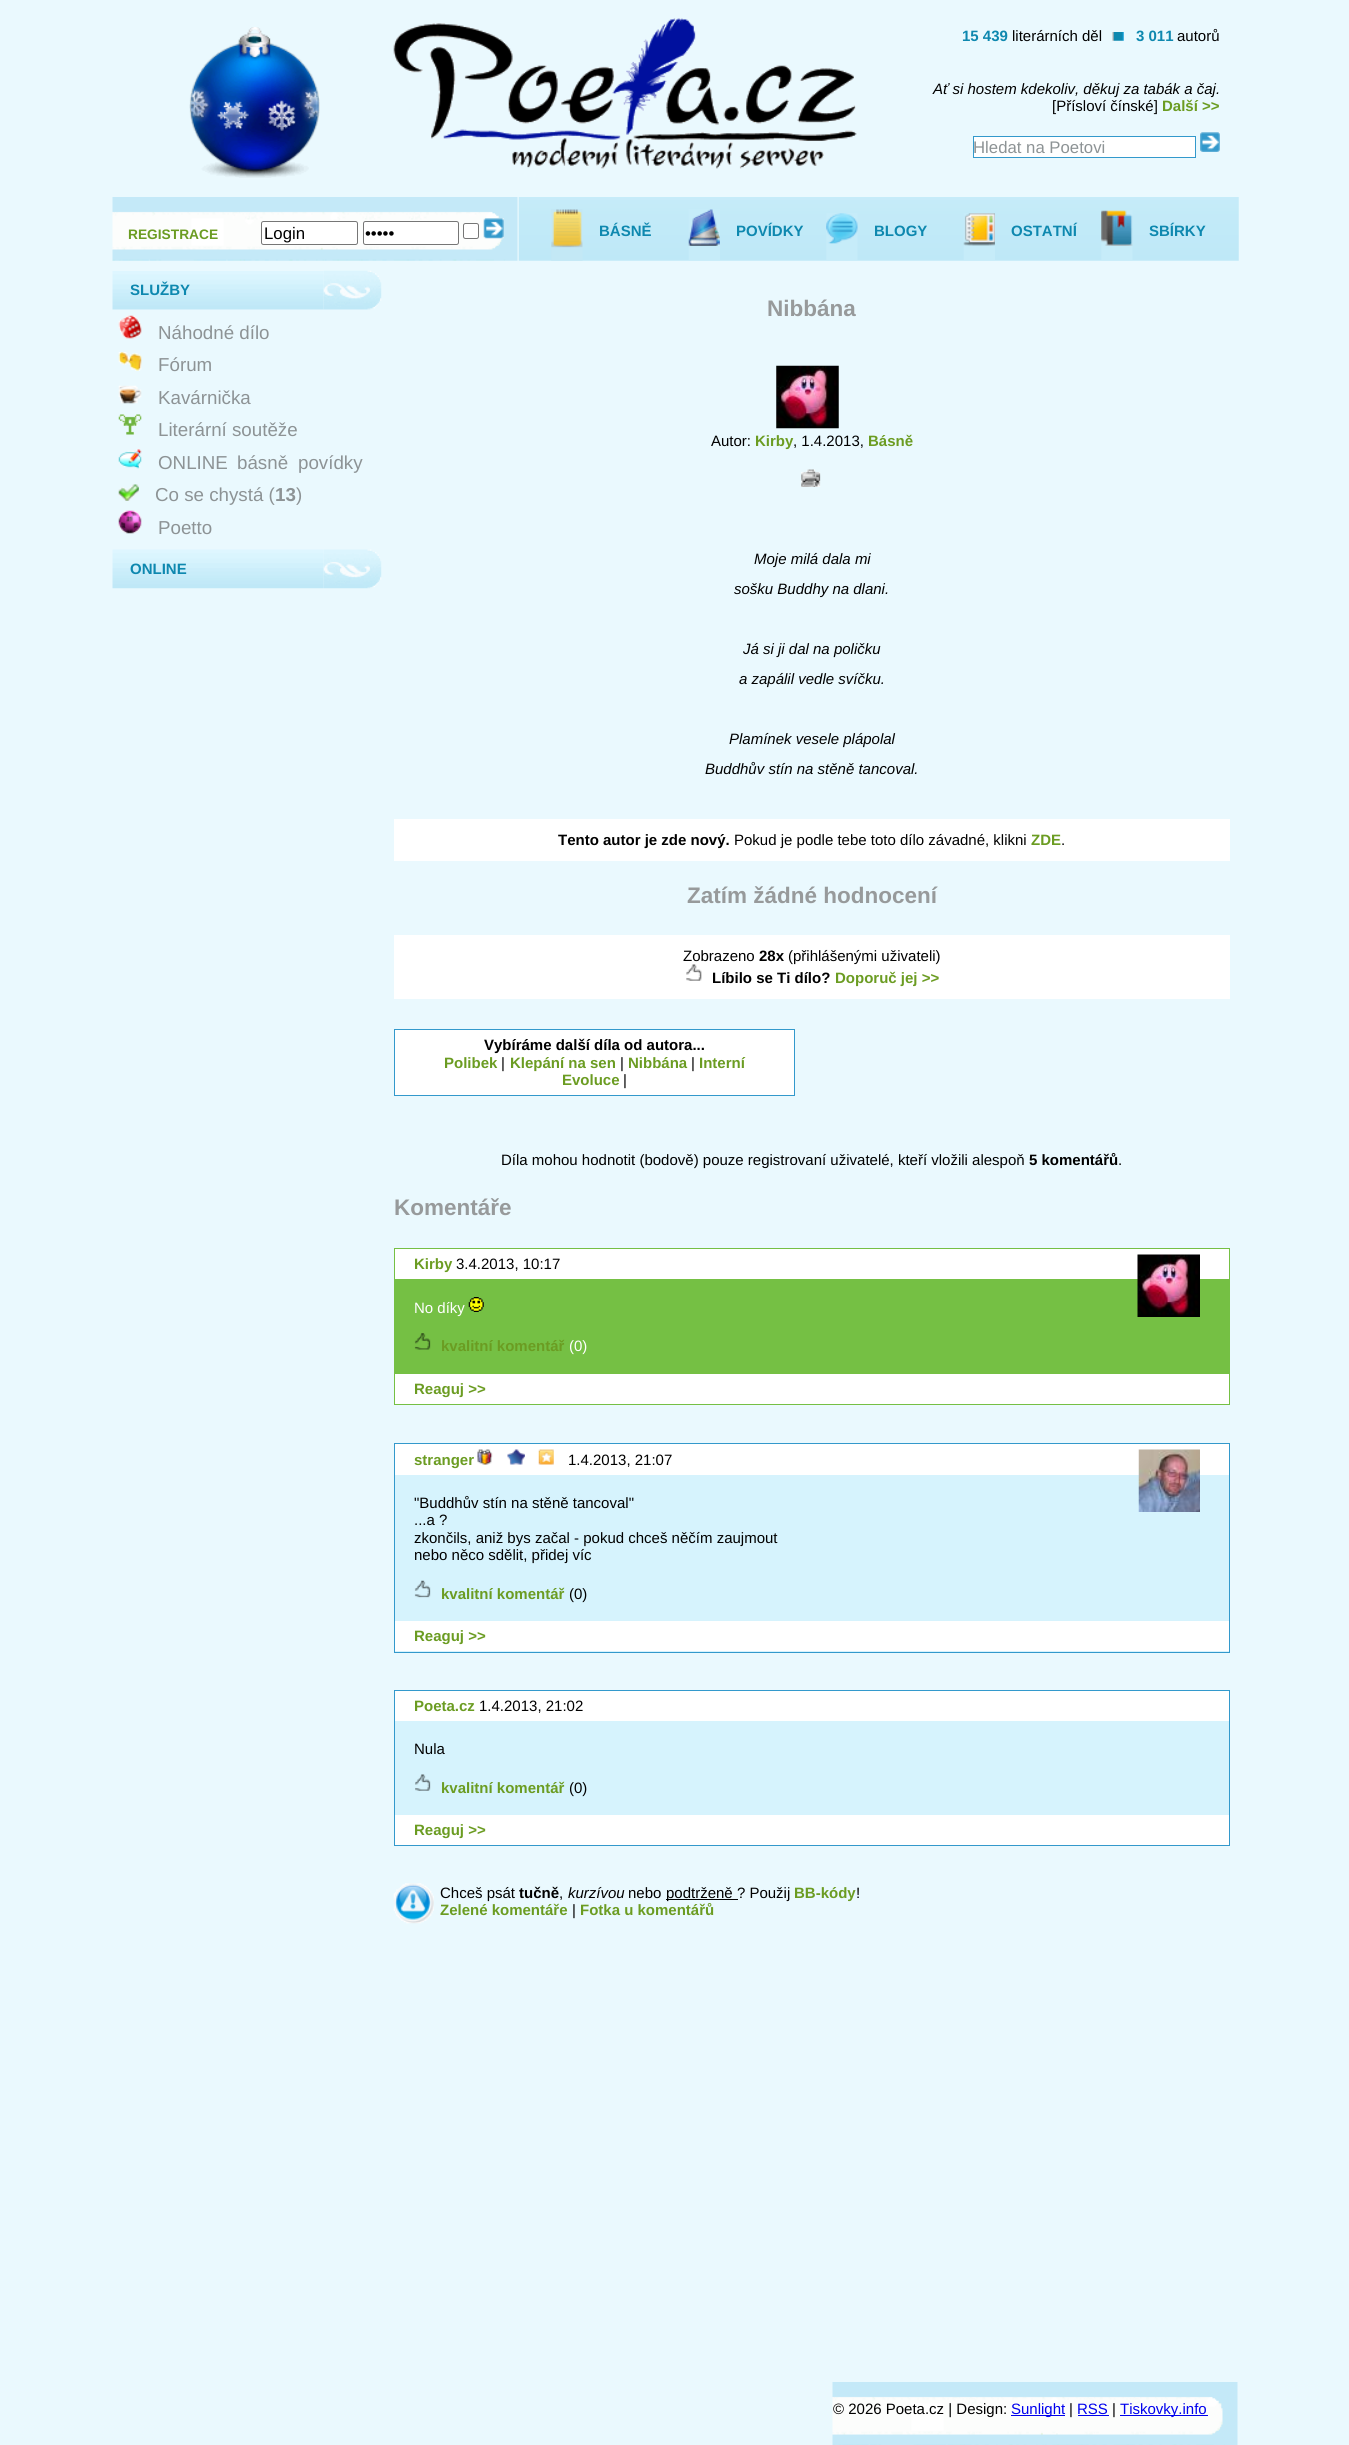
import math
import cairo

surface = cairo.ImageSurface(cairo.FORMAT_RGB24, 1349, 2445)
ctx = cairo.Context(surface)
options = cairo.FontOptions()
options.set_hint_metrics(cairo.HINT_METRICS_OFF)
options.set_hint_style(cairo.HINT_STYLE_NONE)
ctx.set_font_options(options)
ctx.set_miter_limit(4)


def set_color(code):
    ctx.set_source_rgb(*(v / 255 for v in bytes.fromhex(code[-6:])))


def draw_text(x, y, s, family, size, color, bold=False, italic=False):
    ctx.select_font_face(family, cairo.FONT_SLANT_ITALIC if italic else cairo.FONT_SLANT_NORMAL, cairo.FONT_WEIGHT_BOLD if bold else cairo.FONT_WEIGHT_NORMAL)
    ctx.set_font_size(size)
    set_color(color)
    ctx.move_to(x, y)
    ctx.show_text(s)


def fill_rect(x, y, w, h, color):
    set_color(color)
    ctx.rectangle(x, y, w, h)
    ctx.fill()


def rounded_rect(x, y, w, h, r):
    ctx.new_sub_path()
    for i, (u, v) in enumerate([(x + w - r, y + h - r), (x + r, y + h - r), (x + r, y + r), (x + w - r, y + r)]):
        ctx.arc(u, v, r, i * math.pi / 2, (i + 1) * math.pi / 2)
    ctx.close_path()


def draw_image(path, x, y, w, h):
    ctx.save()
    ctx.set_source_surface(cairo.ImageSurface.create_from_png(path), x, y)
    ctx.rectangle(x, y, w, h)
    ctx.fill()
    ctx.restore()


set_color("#eaf9fe")
ctx.paint()
draw_image("assets/img1.png", 393, 18, 464, 151)
draw_image("assets/img2.png", 189, 27, 131, 151)
draw_image("assets/img3.png", 112, 197, 406, 64)
draw_text(128, 239, "REGISTRACE", "Liberation Sans", 13.75, "#6b9c22", bold=True)
set_color("#ffffff")
rounded_rect(261.5, 221.5, 96, 23, 2)
ctx.fill_preserve()
set_color("#767676")
ctx.set_line_width(1)
ctx.stroke()
draw_text(264, 239, "Login", "Liberation Sans", 16.75, "#000000")
set_color("#ffffff")
rounded_rect(363.5, 221.5, 95, 23, 2)
ctx.fill_preserve()
set_color("#767676")
ctx.stroke()
draw_text(365, 239, "•••••", "Liberation Sans", 16.75, "#000000")
set_color("#ffffff")
rounded_rect(463.5, 223.5, 15, 15, 2)
ctx.fill_preserve()
set_color("#767676")
ctx.stroke()
draw_image("assets/img4.png", 483, 218, 21, 21)
draw_text(962, 41, "15 439", "Liberation Sans", 15, "#0e88af", bold=True)
draw_text(1012, 41, "literárních děl", "Liberation Sans", 15, "#000000")
draw_image("assets/img5.png", 1112, 32, 12, 9)
draw_text(1136, 41, "3 011", "Liberation Sans", 15, "#0e88af", bold=True)
draw_text(1177, 41, "autorů", "Liberation Sans", 15, "#000000")
draw_text(933, 94, "Ať si hostem kdekoliv, děkuj za tabák a čaj.", "Liberation Sans", 15, "#000000", italic=True)
draw_text(1052, 111, "[Přísloví čínské]", "Liberation Sans", 15, "#000000")
draw_text(1162, 111, "Další >>", "Liberation Sans", 15, "#6b9c22", bold=True)
set_color("#ffffff")
ctx.rectangle(973.5, 136.5, 222, 21)
ctx.fill_preserve()
set_color("#3399cc")
ctx.stroke()
draw_text(973, 153, "Hledat na Poetovi", "Liberation Sans", 16.75, "#8d9395")
draw_image("assets/img6.png", 1200, 132, 20, 20)
draw_image("assets/img7.png", 518, 197, 721, 64)
draw_image("assets/img8.png", 551, 209, 32, 52)
draw_text(599, 236, "BÁSNĚ", "Liberation Sans", 15, "#0e88af", bold=True)
draw_image("assets/img9.png", 688, 209, 32, 51)
draw_text(736, 236, "POVÍDKY", "Liberation Sans", 15, "#0e88af", bold=True)
draw_image("assets/img10.png", 826, 213, 32, 47)
draw_text(874, 236, "BLOGY", "Liberation Sans", 15, "#0e88af", bold=True)
draw_image("assets/img11.png", 963, 213, 32, 47)
draw_text(1011, 236, "OSTATNÍ", "Liberation Sans", 15, "#0e88af", bold=True)
draw_image("assets/img12.png", 1101, 210, 32, 50)
draw_text(1149, 236, "SBÍRKY", "Liberation Sans", 15, "#0e88af", bold=True)
draw_image("assets/img13.png", 112, 271, 212, 39)
draw_text(130, 295, "SLUŽBY", "Liberation Sans", 15, "#0e88af", bold=True)
draw_image("assets/img14.png", 323, 270, 59, 40)
draw_image("assets/img15.png", 118, 315, 24, 24)
draw_text(158, 339, "Náhodné dílo", "Liberation Sans", 18.75, "#8d9395")
draw_image("assets/img16.png", 118, 352, 24, 19)
draw_text(158, 371, "Fórum", "Liberation Sans", 18.75, "#8d9395")
draw_image("assets/img17.png", 118, 385, 24, 19)
draw_text(158, 404, "Kavárnička", "Liberation Sans", 18.75, "#8d9395")
draw_image("assets/img18.png", 118, 414, 24, 21)
draw_text(158, 436, "Literární soutěže", "Liberation Sans", 18.75, "#8d9395")
draw_image("assets/img19.png", 118, 449, 24, 20)
draw_text(158, 469, "ONLINE", "Liberation Sans", 18.75, "#8d9395")
draw_text(237, 469, "básně", "Liberation Sans", 18.75, "#8d9395")
draw_text(298, 469, "povídky", "Liberation Sans", 18.75, "#8d9395")
draw_image("assets/img20.png", 118, 484, 21, 17)
draw_text(155, 501, "Co se chystá (", "Liberation Sans", 18.75, "#8d9395")
draw_text(275, 501, "13", "Liberation Sans", 18.75, "#8d9395", bold=True)
draw_text(296, 501, ")", "Liberation Sans", 18.75, "#8d9395")
draw_image("assets/img21.png", 118, 510, 24, 24)
draw_text(158, 534, "Poetto", "Liberation Sans", 18.75, "#8d9395")
draw_image("assets/img22.png", 112, 549, 212, 40)
draw_text(130, 574, "ONLINE", "Liberation Sans", 15, "#0e88af", bold=True)
draw_image("assets/img23.png", 323, 549, 59, 40)
draw_text(767, 316, "Nibbána", "Liberation Sans", 22.5, "#979a9b", bold=True)
draw_image("assets/img24.png", 776, 365, 63, 64)
draw_text(711, 446, "Autor:", "Liberation Sans", 15, "#000000")
draw_text(755, 446, "Kirby", "Liberation Sans", 15, "#6b9c22", bold=True)
draw_text(793, 446, ", 1.4.2013,", "Liberation Sans", 15, "#000000")
draw_text(868, 446, "Básně", "Liberation Sans", 15, "#6b9c22", bold=True)
draw_image("assets/img25.png", 801, 469, 20, 18)
draw_text(754, 564, "Moje milá dala mi", "Liberation Sans", 15, "#000000", italic=True)
draw_text(734, 594, "sošku Buddhy na dlani.", "Liberation Sans", 15, "#000000", italic=True)
draw_text(743, 654, "Já si ji dal na poličku", "Liberation Sans", 15, "#000000", italic=True)
draw_text(739, 684, "a zapálil vedle svíčku.", "Liberation Sans", 15, "#000000", italic=True)
draw_text(729, 744, "Plamínek vesele plápolal", "Liberation Sans", 15, "#000000", italic=True)
draw_text(705, 774, "Buddhův stín na stěně tancoval.", "Liberation Sans", 15, "#000000", italic=True)
fill_rect(394, 819, 836, 42, "#ffffff")
draw_text(558, 845, "Tento autor je zde nový.", "Liberation Sans", 15, "#000000", bold=True)
draw_text(734, 845, "Pokud je podle tebe toto dílo závadné, klikni", "Liberation Sans", 15, "#000000")
draw_text(1031, 845, "ZDE", "Liberation Sans", 15, "#6b9c22", bold=True)
draw_text(1061, 845, ".", "Liberation Sans", 15, "#000000")
draw_text(687, 903, "Zatím žádné hodnocení", "Liberation Sans", 22.5, "#979a9b", bold=True)
fill_rect(394, 935, 836, 64, "#ffffff")
draw_text(683, 961, "Zobrazeno", "Liberation Sans", 15, "#000000")
draw_text(759, 961, "28x", "Liberation Sans", 15, "#000000", bold=True)
draw_text(788, 961, "(přihlášenými uživateli)", "Liberation Sans", 15, "#000000")
draw_image("assets/img26.png", 686, 964, 16, 17)
draw_text(712, 983, "Líbilo se Ti dílo?", "Liberation Sans", 15, "#000000", bold=True)
draw_text(835, 983, "Doporuč jej >>", "Liberation Sans", 15, "#6b9c22", bold=True)
ctx.rectangle(394.5, 1029.5, 400, 66)
set_color("#3399cc")
ctx.stroke()
fill_rect(395, 1030, 399, 65, "#ffffff")
draw_text(484, 1050, "Vybíráme další díla od autora...", "Liberation Sans", 15, "#000000", bold=True)
draw_text(444, 1068, "Polibek", "Liberation Sans", 15, "#6b9c22", bold=True)
draw_text(501, 1068, "|", "Liberation Sans", 15, "#000000")
draw_text(510, 1068, "Klepání na sen", "Liberation Sans", 15, "#6b9c22", bold=True)
draw_text(620, 1068, "|", "Liberation Sans", 15, "#000000")
draw_text(628, 1068, "Nibbána", "Liberation Sans", 15, "#6b9c22", bold=True)
draw_text(691, 1068, "|", "Liberation Sans", 15, "#000000")
draw_text(699, 1068, "Interní", "Liberation Sans", 15, "#6b9c22", bold=True)
draw_text(562, 1085, "Evoluce", "Liberation Sans", 15, "#6b9c22", bold=True)
draw_text(623, 1085, "|", "Liberation Sans", 15, "#000000")
draw_text(501, 1165, "Díla mohou hodnotit (bodově) pouze registrovaní uživatelé, kteří vložili alespoň", "Liberation Sans", 15, "#000000")
draw_text(1029, 1165, "5 komentářů", "Liberation Sans", 15, "#000000", bold=True)
draw_text(1118, 1165, ".", "Liberation Sans", 15, "#000000")
draw_text(394, 1215, "Komentáře", "Liberation Sans", 22.5, "#979a9b", bold=True)
fill_rect(394, 1248, 836, 157, "#75c044")
fill_rect(395, 1249, 834, 30, "#ffffff")
draw_text(414, 1269, "Kirby", "Liberation Sans", 15, "#6b9c22", bold=True)
draw_text(456, 1269, "3.4.2013, 10:17", "Liberation Sans", 15, "#000000")
draw_image("assets/img27.png", 1137, 1254, 63, 63)
draw_text(414, 1313, "No díky", "Liberation Sans", 15, "#ffffff")
draw_image("assets/img28.png", 468, 1297, 16, 15)
draw_image("assets/img29.png", 414, 1333, 17, 17)
draw_text(441, 1351, "kvalitní komentář", "Liberation Sans", 15, "#6b9c22", bold=True)
draw_text(569, 1351, "(0)", "Liberation Sans", 15, "#ffffff")
fill_rect(395, 1374, 834, 30, "#ffffff")
draw_text(414, 1394, "Reaguj >>", "Liberation Sans", 15, "#6b9c22", bold=True)
fill_rect(395, 1475, 834, 177, "#d6f3fd")
ctx.rectangle(394.5, 1443.5, 835, 209)
set_color("#3399cc")
ctx.stroke()
fill_rect(395, 1444, 834, 31, "#ffffff")
draw_text(414, 1465, "stranger", "Liberation Sans", 15, "#6b9c22", bold=True)
draw_image("assets/img30.png", 477, 1449, 16, 16)
draw_image("assets/img31.png", 507, 1449, 18, 16)
draw_image("assets/img32.png", 538, 1449, 16, 16)
draw_text(568, 1465, "1.4.2013, 21:07", "Liberation Sans", 15, "#000000")
draw_image("assets/img33.png", 1138, 1449, 62, 63)
draw_text(414, 1508, "\"Buddhův stín na stěně tancoval\"", "Liberation Sans", 15, "#000000")
draw_text(414, 1525, "...a ?", "Liberation Sans", 15, "#000000")
draw_text(414, 1543, "zkončils, aniž bys začal - pokud chceš něčím zaujmout", "Liberation Sans", 15, "#000000")
draw_text(414, 1560, "nebo něco sdělit, přidej víc", "Liberation Sans", 15, "#000000")
draw_image("assets/img34.png", 414, 1580, 17, 18)
draw_text(441, 1599, "kvalitní komentář", "Liberation Sans", 15, "#6b9c22", bold=True)
draw_text(569, 1599, "(0)", "Liberation Sans", 15, "#000000")
fill_rect(395, 1621, 834, 30, "#ffffff")
draw_text(414, 1641, "Reaguj >>", "Liberation Sans", 15, "#6b9c22", bold=True)
fill_rect(395, 1721, 834, 94, "#d6f3fd")
ctx.rectangle(394.5, 1690.5, 835, 155)
set_color("#3399cc")
ctx.stroke()
fill_rect(395, 1691, 834, 30, "#ffffff")
draw_text(414, 1711, "Poeta.cz", "Liberation Sans", 15, "#6b9c22", bold=True)
draw_text(479, 1711, "1.4.2013, 21:02", "Liberation Sans", 15, "#000000")
draw_text(414, 1754, "Nula", "Liberation Sans", 15, "#000000")
draw_image("assets/img35.png", 415, 1774, 16, 17)
draw_text(441, 1793, "kvalitní komentář", "Liberation Sans", 15, "#6b9c22", bold=True)
draw_text(569, 1793, "(0)", "Liberation Sans", 15, "#000000")
fill_rect(395, 1815, 834, 30, "#ffffff")
draw_text(414, 1835, "Reaguj >>", "Liberation Sans", 15, "#6b9c22", bold=True)
draw_image("assets/img36.png", 393, 1883, 41, 41)
draw_text(440, 1898, "Chceš psát", "Liberation Sans", 15, "#000000")
draw_text(519, 1898, "tučně", "Liberation Sans", 15, "#000000", bold=True)
draw_text(559, 1898, ",", "Liberation Sans", 15, "#000000")
draw_text(568, 1898, "kurzívou", "Liberation Sans", 15, "#000000", italic=True)
draw_text(628, 1898, "nebo", "Liberation Sans", 15, "#000000")
fill_rect(666, 1899, 72, 1, "#000000")
draw_text(666, 1898, "podtrženě ? Použij", "Liberation Sans", 15, "#000000")
draw_text(794, 1898, "BB-kódy", "Liberation Sans", 15, "#6b9c22", bold=True)
draw_text(856, 1898, "!", "Liberation Sans", 15, "#000000")
draw_text(440, 1915, "Zelené komentáře", "Liberation Sans", 15, "#6b9c22", bold=True)
draw_text(572, 1915, "|", "Liberation Sans", 15, "#000000")
draw_text(580, 1915, "Fotka u komentářů", "Liberation Sans", 15, "#6b9c22", bold=True)
draw_image("assets/img37.png", 832, 2382, 406, 63)
draw_text(833, 2414, "© 2026 Poeta.cz | Design:", "Liberation Sans", 15, "#000000")
fill_rect(1011, 2415, 54, 1, "#0000ee")
draw_text(1011, 2414, "Sunlight", "Liberation Sans", 15, "#0000ee")
draw_text(1069, 2414, "|", "Liberation Sans", 15, "#000000")
draw_text(1077, 2414, "RSS", "Liberation Sans", 15, "#0000ee")
fill_rect(1078, 2415, 31, 1, "#0000ee")
draw_text(1112, 2414, "|", "Liberation Sans", 15, "#000000")
fill_rect(1120, 2415, 88, 1, "#0000ee")
draw_text(1120, 2414, "Tiskovky.info", "Liberation Sans", 15, "#0000ee")
surface.write_to_png("output.png")
